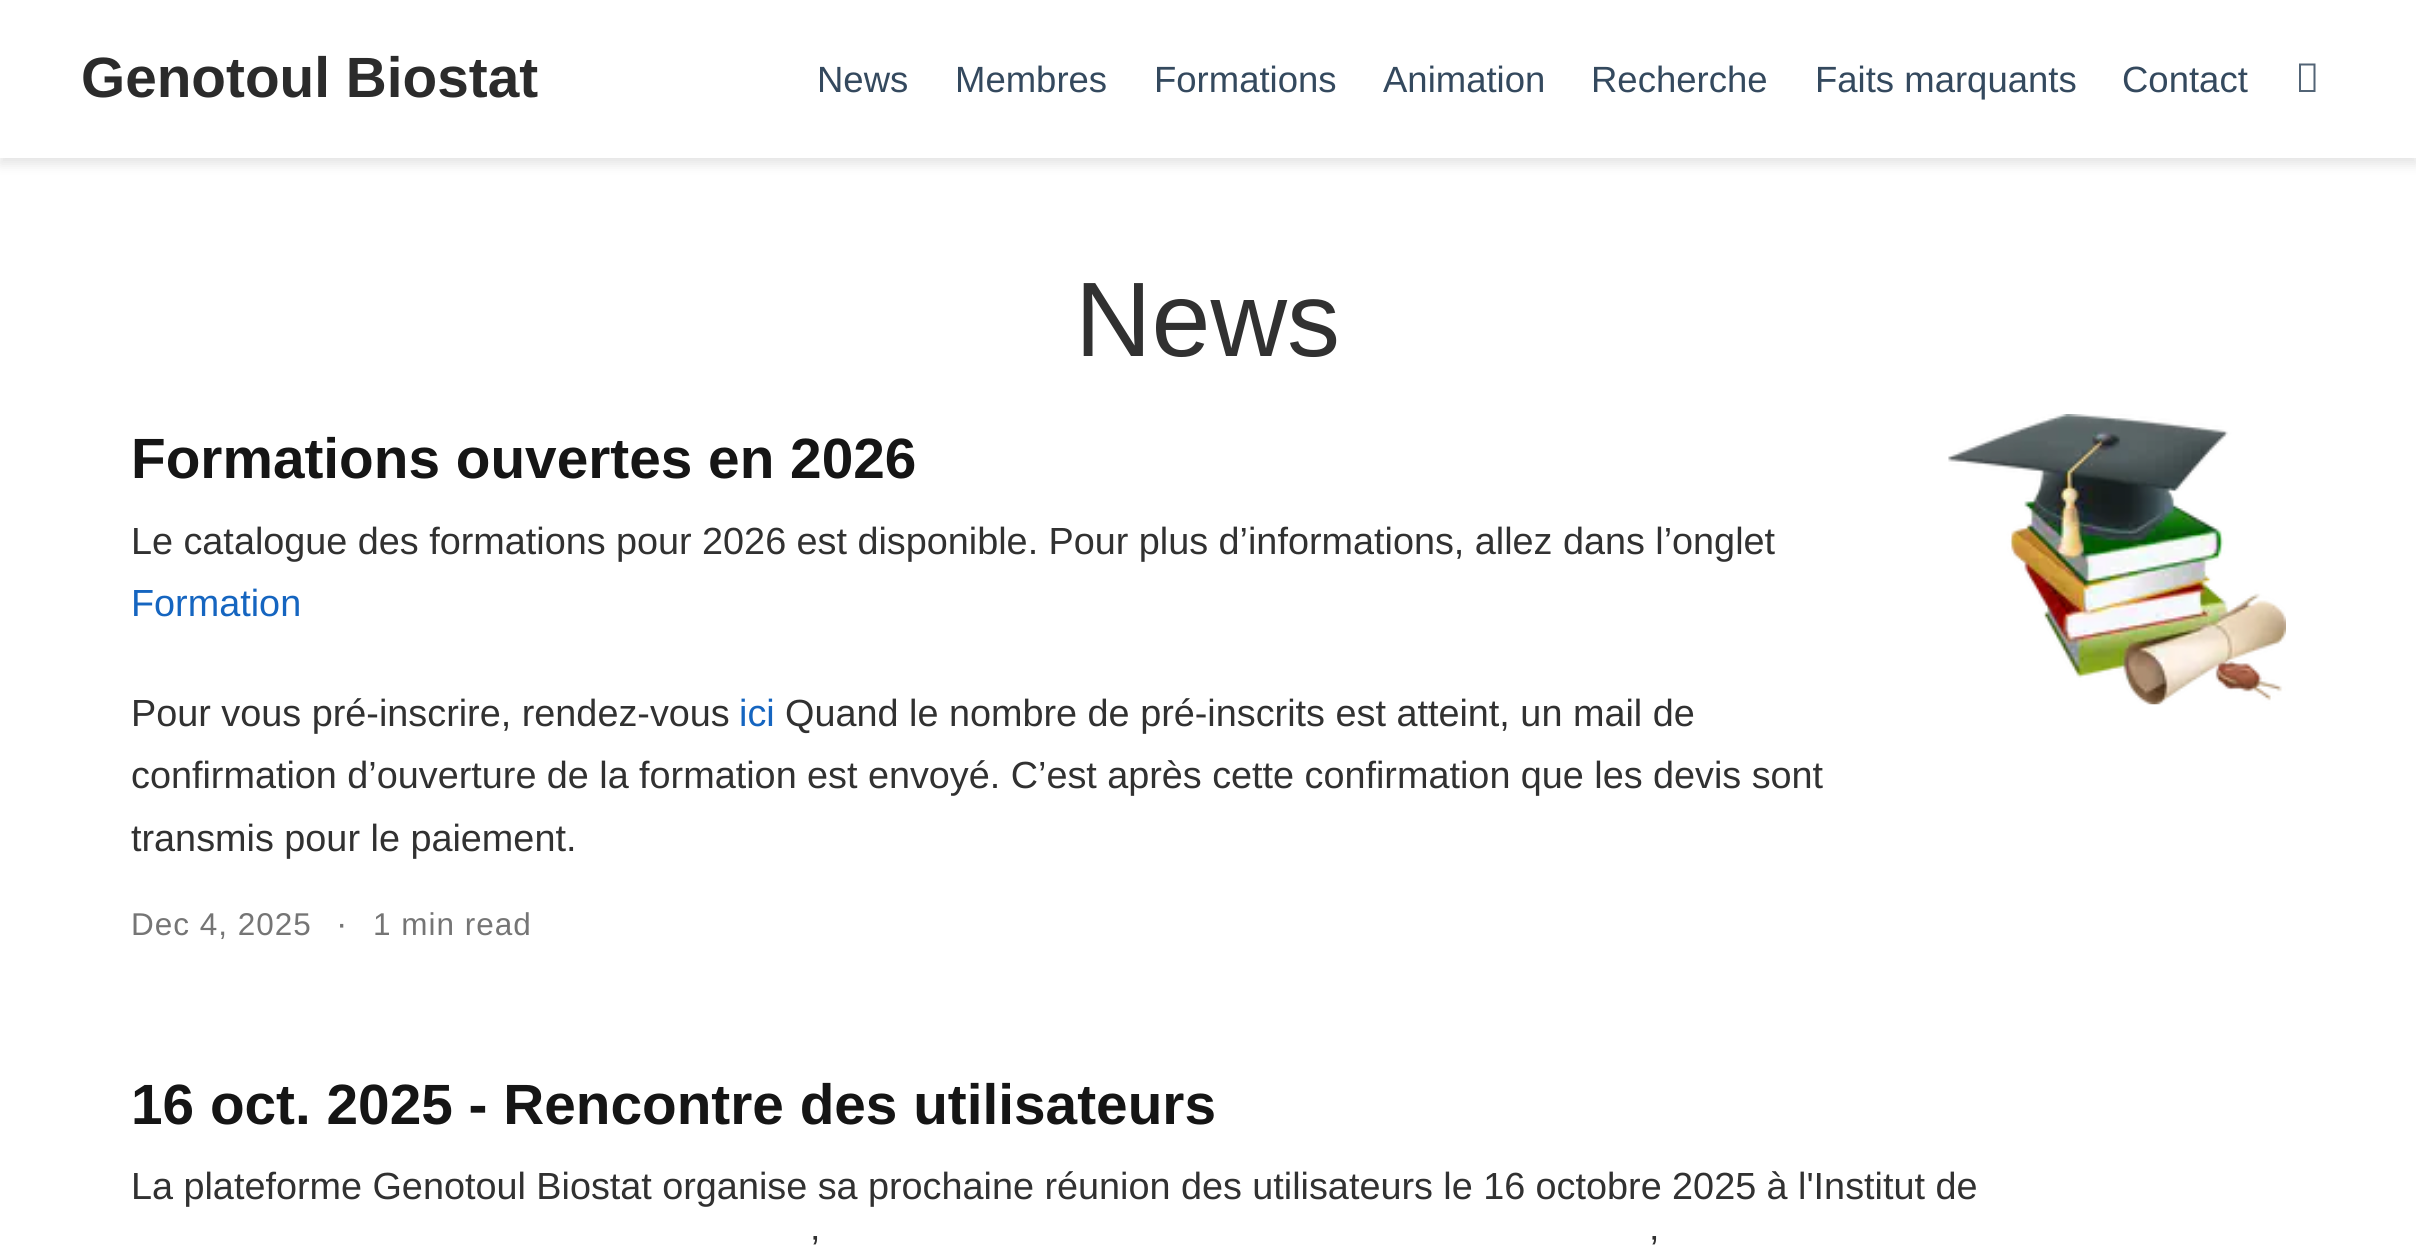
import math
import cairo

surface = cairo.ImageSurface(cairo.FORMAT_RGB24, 2416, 1253)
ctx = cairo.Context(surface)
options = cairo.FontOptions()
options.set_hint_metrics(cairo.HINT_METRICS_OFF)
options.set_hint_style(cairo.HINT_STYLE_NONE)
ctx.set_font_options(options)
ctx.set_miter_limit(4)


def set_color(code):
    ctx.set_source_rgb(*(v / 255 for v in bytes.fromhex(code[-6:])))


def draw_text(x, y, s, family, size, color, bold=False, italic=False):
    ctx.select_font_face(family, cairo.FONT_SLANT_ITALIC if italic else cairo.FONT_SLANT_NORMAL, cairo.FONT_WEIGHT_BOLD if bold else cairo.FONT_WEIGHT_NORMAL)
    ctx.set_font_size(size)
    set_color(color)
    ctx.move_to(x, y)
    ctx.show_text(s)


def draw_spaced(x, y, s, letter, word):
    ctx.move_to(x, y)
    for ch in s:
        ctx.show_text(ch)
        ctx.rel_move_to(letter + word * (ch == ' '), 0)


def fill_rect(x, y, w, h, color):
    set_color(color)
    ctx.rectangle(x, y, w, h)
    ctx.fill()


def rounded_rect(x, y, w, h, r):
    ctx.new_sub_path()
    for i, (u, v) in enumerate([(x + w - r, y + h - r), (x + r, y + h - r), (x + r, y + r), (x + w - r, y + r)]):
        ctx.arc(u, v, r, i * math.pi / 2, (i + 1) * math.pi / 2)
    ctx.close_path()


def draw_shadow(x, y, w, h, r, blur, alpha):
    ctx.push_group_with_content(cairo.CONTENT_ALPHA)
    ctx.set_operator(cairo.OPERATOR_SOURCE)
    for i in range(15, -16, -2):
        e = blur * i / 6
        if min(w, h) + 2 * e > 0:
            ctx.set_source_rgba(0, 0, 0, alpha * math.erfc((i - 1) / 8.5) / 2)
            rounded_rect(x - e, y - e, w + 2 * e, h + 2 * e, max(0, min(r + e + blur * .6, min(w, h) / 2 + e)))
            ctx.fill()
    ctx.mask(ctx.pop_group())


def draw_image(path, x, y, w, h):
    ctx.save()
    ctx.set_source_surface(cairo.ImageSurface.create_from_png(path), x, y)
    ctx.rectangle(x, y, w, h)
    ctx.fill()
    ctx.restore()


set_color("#ffffff")
ctx.paint()
set_color("#000000")
draw_shadow(0, 7, 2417, 157, 0, 6, 0.11)
fill_rect(0, 0, 2416, 158, "#ffffff")
draw_text(81, 97, "Genotoul Biostat", "Liberation Sans", 56.75, "#2b2b2b", bold=True)
draw_text(817, 92, "News", "Liberation Sans", 36.5, "#34495e")
draw_text(955, 92, "Membres", "Liberation Sans", 36.5, "#34495e")
draw_text(1154, 92, "Formations", "Liberation Sans", 36.5, "#34495e")
draw_text(1383, 92, "Animation", "Liberation Sans", 36.5, "#34495e")
draw_text(1591, 92, "Recherche", "Liberation Sans", 36.5, "#34495e")
draw_text(1815, 92, "Faits marquants", "Liberation Sans", 36.5, "#34495e")
draw_text(2122, 92, "Contact", "Liberation Sans", 36.5, "#34495e")
set_color("#526476")
ctx.new_path()
ctx.move_to(2299, 92)
ctx.line_to(2299, 63.5)
ctx.line_to(2315.5, 63.5)
ctx.line_to(2315.5, 92)
ctx.close_path()
ctx.move_to(2301, 90)
ctx.line_to(2313.5, 90)
ctx.line_to(2313.5, 65.5)
ctx.line_to(2301, 65.5)
ctx.close_path()
ctx.fill()
draw_text(1075, 356, "News", "Liberation Sans", 106, "#313131")
draw_text(131, 478, "Formations ouvertes en 2026", "Liberation Sans", 56.75, "#151515", bold=True)
ctx.select_font_face("Liberation Sans")
ctx.set_font_size(37.8)
set_color("#313131")
draw_spaced(131, 554, "Le catalogue des formations pour 2026 est disponible. Pour plus d’informations, allez dans l’onglet", 0, -0.1)
draw_text(131, 616, "Formation", "Liberation Sans", 37.8, "#1565c0")
draw_text(131, 726, "Pour vous pré-inscrire, rendez-vous", "Liberation Sans", 37.8, "#313131")
draw_text(739, 726, "ici", "Liberation Sans", 37.8, "#1565c0")
draw_text(785, 726, "Quand le nombre de pré-inscrits est atteint, un mail de", "Liberation Sans", 37.8, "#313131")
draw_spaced(131, 788, "confirmation d’ouverture de la formation est envoyé. C’est après cette confirmation que les devis sont", 0, -0.1)
draw_text(131, 851, "transmis pour le paiement.", "Liberation Sans", 37.8, "#313131")
ctx.set_font_size(31.5)
set_color("#757575")
draw_spaced(131, 935, "Dec 4, 2025", 1, 0)
ctx.set_font_size(34)
draw_spaced(336, 935, "·", 1, 0)
ctx.set_font_size(31.5)
draw_spaced(373, 935, "1 min read", 1, 0)
draw_image("assets/img1.png", 1948, 414, 338, 291)
draw_text(131, 1124, "16 oct. 2025 - Rencontre des utilisateurs", "Liberation Sans", 56.75, "#151515", bold=True)
ctx.select_font_face("Liberation Sans")
ctx.set_font_size(37.8)
set_color("#313131")
draw_spaced(131, 1199, "La plateforme Genotoul Biostat organise sa prochaine réunion des utilisateurs le 16 octobre 2025 à l'Institut de", 0, -0.1)
draw_spaced(811, 1262, "’", 0, -0.1)
draw_spaced(1650, 1262, "’", 0, -0.1)
surface.write_to_png("output.png")
